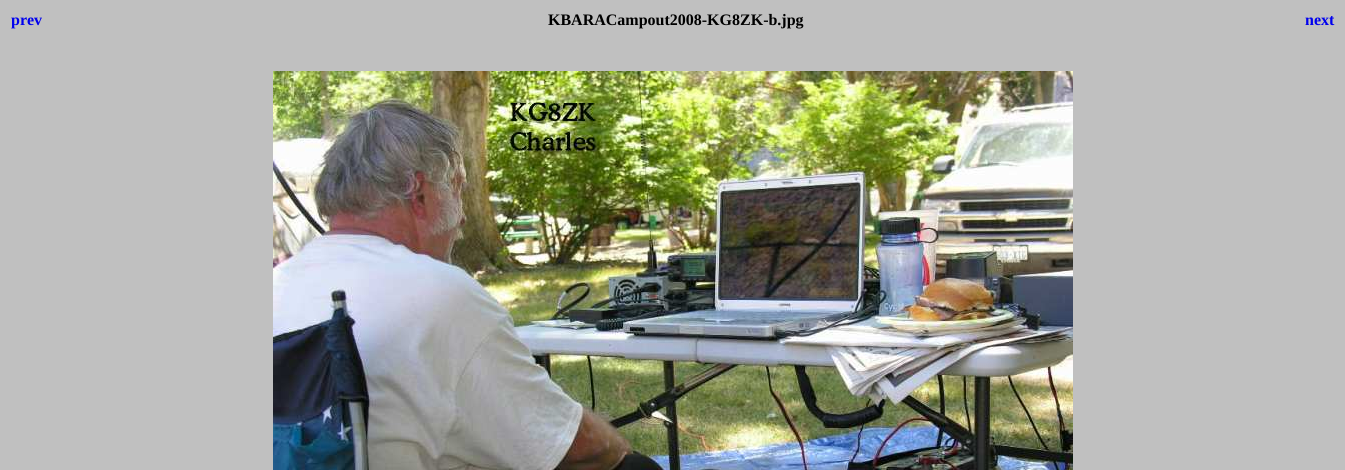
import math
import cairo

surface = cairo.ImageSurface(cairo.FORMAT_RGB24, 1345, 470)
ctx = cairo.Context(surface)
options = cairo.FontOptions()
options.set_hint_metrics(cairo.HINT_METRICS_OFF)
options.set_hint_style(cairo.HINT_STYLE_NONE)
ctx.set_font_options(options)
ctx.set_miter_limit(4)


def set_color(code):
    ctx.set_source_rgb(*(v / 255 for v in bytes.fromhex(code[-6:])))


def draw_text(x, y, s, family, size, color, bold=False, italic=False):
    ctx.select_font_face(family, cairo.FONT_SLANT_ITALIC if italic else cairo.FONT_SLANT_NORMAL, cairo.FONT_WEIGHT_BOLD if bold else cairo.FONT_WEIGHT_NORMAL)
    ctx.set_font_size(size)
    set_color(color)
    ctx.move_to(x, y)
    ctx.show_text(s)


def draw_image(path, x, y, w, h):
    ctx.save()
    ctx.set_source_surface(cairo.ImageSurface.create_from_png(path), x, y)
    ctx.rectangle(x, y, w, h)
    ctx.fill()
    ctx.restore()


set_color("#c0c0c0")
ctx.paint()
draw_text(11, 25, "prev", "Liberation Serif", 16, "#0000ee", bold=True)
draw_text(548, 25, "KBARACampout2008-KG8ZK-b.jpg", "Liberation Serif", 16, "#000000", bold=True)
draw_text(1305, 25, "next", "Liberation Serif", 16, "#0000ee", bold=True)
draw_image("assets/img1.png", 273, 71, 800, 399)
surface.write_to_png("output.png")
